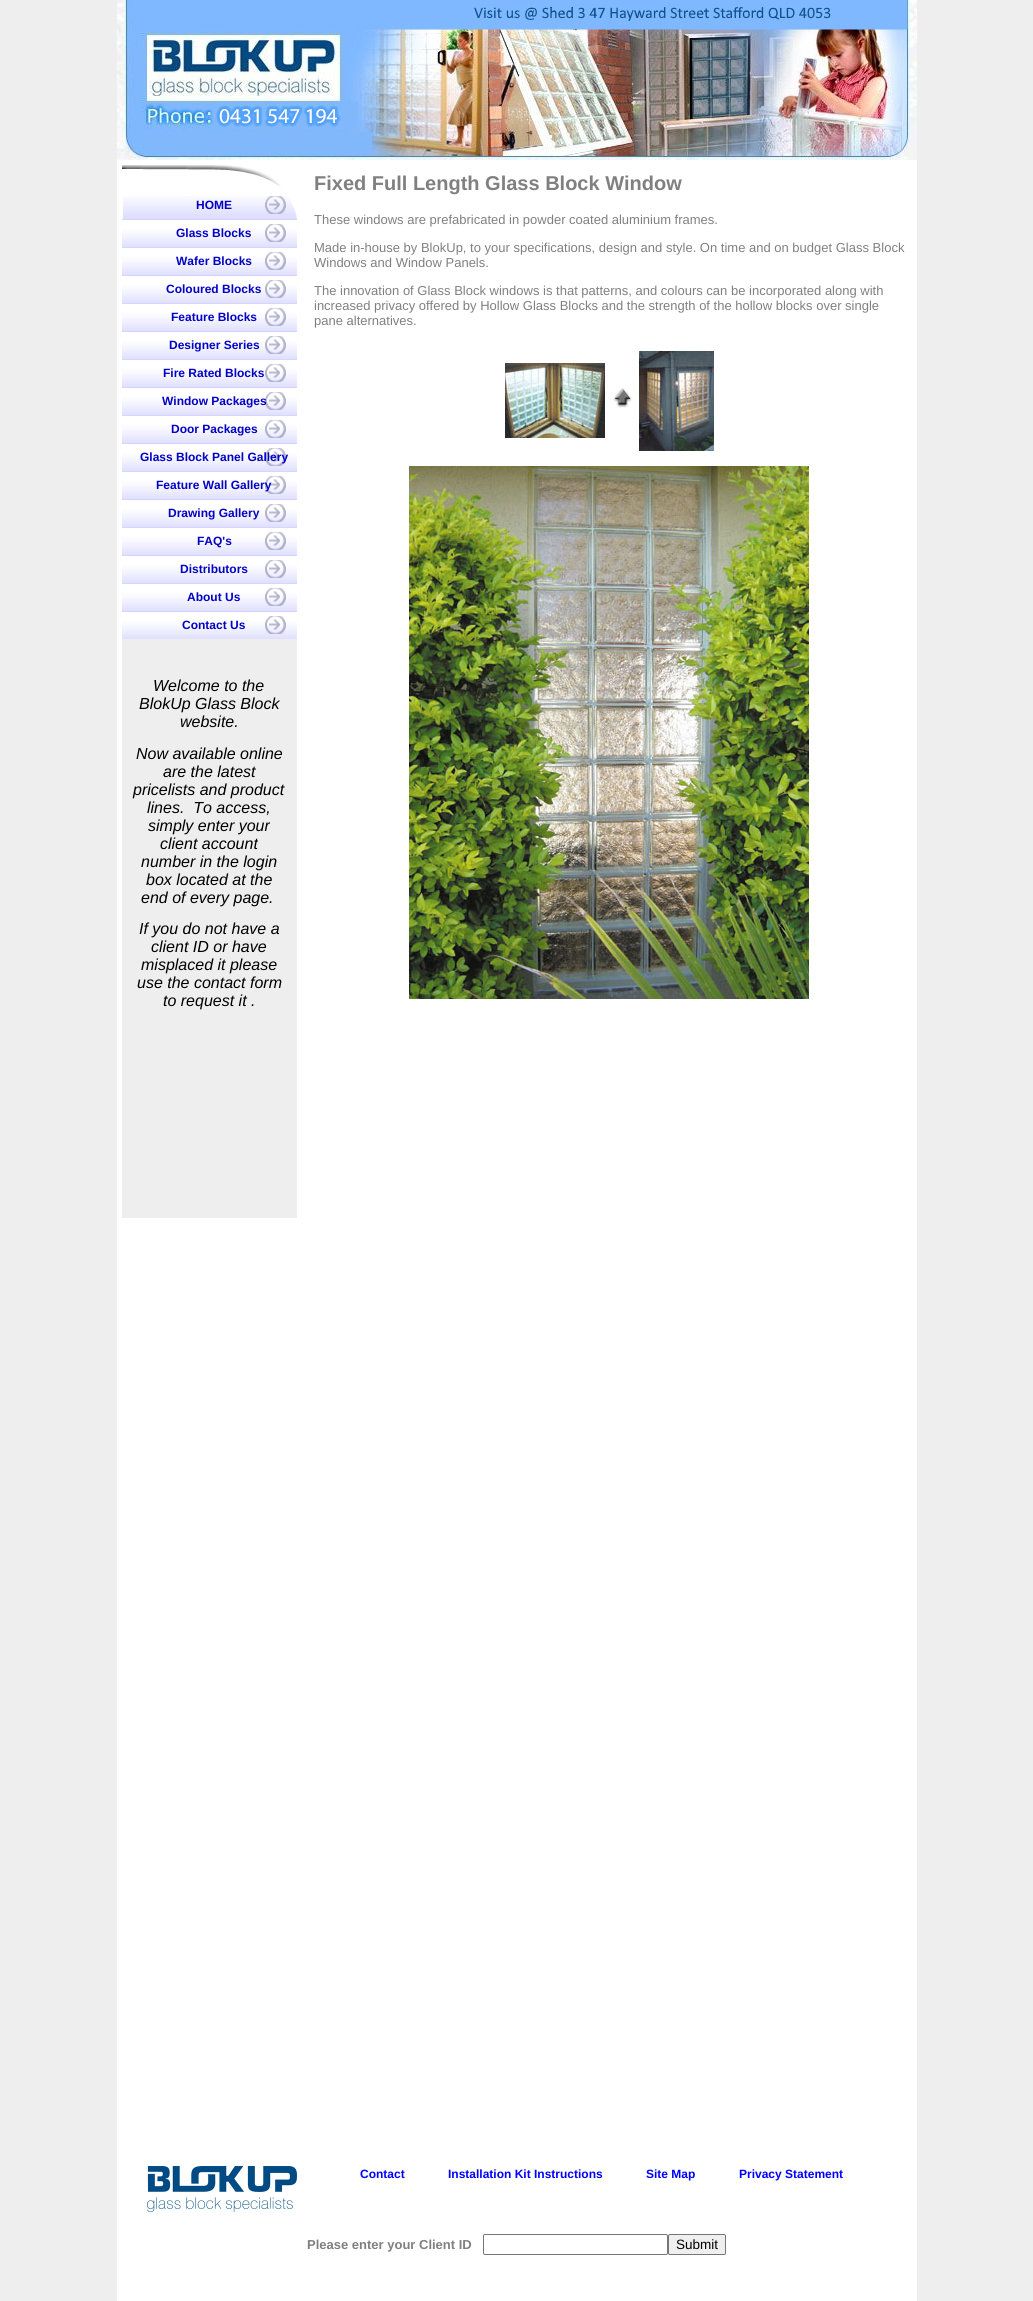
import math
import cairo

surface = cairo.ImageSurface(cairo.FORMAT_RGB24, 1033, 2301)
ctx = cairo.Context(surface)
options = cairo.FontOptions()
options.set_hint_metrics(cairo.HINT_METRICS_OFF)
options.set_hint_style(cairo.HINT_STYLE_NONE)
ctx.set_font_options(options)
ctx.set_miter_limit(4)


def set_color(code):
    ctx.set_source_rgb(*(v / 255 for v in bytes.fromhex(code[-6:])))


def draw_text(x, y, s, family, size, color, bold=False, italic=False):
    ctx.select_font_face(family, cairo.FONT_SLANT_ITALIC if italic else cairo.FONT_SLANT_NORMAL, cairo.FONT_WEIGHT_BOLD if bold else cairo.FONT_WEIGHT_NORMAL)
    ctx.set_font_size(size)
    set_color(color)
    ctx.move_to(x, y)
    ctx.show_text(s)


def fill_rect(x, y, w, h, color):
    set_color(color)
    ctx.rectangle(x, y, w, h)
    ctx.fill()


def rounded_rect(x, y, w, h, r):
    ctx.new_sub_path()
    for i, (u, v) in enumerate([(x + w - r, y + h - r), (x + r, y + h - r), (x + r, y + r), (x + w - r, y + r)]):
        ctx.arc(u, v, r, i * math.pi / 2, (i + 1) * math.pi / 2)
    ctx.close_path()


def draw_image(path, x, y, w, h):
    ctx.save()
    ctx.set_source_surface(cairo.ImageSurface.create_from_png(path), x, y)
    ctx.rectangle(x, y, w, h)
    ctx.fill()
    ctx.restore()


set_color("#eeeeee")
ctx.paint()
draw_image("assets/img1.png", 117, 0, 800, 160)
fill_rect(117, 160, 185, 1986, "#ffffff")
draw_image("assets/img2.png", 122, 165, 159, 22)
draw_image("assets/img3.png", 123, 196, 174, 23)
draw_image("assets/img4.png", 265, 196, 21, 18)
draw_text(196, 209, "HOME", "Liberation Sans", 12, "#0202c5", bold=True)
draw_image("assets/img5.png", 122, 219, 175, 28)
draw_image("assets/img6.png", 265, 224, 21, 18)
draw_text(176, 237, "Glass Blocks", "Liberation Sans", 12, "#0202c5", bold=True)
draw_image("assets/img5.png", 122, 247, 175, 28)
draw_image("assets/img6.png", 265, 252, 21, 18)
draw_text(176, 265, "Wafer Blocks", "Liberation Sans", 12, "#0202c5", bold=True)
draw_image("assets/img5.png", 122, 275, 175, 28)
draw_image("assets/img6.png", 265, 280, 21, 18)
draw_text(166, 293, "Coloured Blocks", "Liberation Sans", 12, "#0202c5", bold=True)
draw_image("assets/img5.png", 122, 303, 175, 28)
draw_image("assets/img6.png", 265, 308, 21, 18)
draw_text(171, 321, "Feature Blocks", "Liberation Sans", 12, "#0202c5", bold=True)
draw_image("assets/img5.png", 122, 331, 175, 28)
draw_image("assets/img6.png", 265, 336, 21, 18)
draw_text(169, 349, "Designer Series", "Liberation Sans", 12, "#0202c5", bold=True)
draw_image("assets/img5.png", 122, 359, 175, 28)
draw_image("assets/img6.png", 265, 364, 21, 18)
draw_text(163, 377, "Fire Rated Blocks", "Liberation Sans", 12, "#0202c5", bold=True)
draw_image("assets/img5.png", 122, 387, 175, 28)
draw_image("assets/img6.png", 265, 392, 21, 18)
draw_text(162, 405, "Window Packages", "Liberation Sans", 12, "#0202c5", bold=True)
draw_image("assets/img5.png", 122, 415, 175, 28)
draw_image("assets/img6.png", 265, 420, 21, 18)
draw_text(171, 433, "Door Packages", "Liberation Sans", 12, "#0202c5", bold=True)
draw_image("assets/img5.png", 122, 443, 175, 28)
draw_image("assets/img6.png", 265, 448, 21, 18)
draw_text(140, 461, "Glass Block Panel Gallery", "Liberation Sans", 12, "#0202c5", bold=True)
draw_image("assets/img5.png", 122, 471, 175, 28)
draw_image("assets/img6.png", 265, 476, 21, 18)
draw_text(156, 489, "Feature Wall Gallery", "Liberation Sans", 12, "#0202c5", bold=True)
draw_image("assets/img5.png", 122, 499, 175, 28)
draw_image("assets/img6.png", 265, 504, 21, 18)
draw_text(168, 517, "Drawing Gallery", "Liberation Sans", 12, "#0202c5", bold=True)
draw_image("assets/img5.png", 122, 527, 175, 28)
draw_image("assets/img6.png", 265, 532, 21, 18)
draw_text(197, 545, "FAQ's", "Liberation Sans", 12, "#0202c5", bold=True)
draw_image("assets/img5.png", 122, 555, 175, 28)
draw_image("assets/img6.png", 265, 560, 21, 18)
draw_text(180, 573, "Distributors", "Liberation Sans", 12, "#0202c5", bold=True)
draw_image("assets/img5.png", 122, 583, 175, 28)
draw_image("assets/img6.png", 265, 588, 21, 18)
draw_text(187, 601, "About Us", "Liberation Sans", 12, "#0202c5", bold=True)
draw_image("assets/img5.png", 122, 611, 175, 28)
draw_image("assets/img6.png", 265, 616, 21, 18)
draw_text(182, 629, "Contact Us", "Liberation Sans", 12, "#0202c5", bold=True)
fill_rect(122, 639, 175, 579, "#eeeeee")
draw_text(153, 691, "Welcome to the", "Liberation Sans", 16, "#000000", italic=True)
draw_text(139, 709, "BlokUp Glass Block", "Liberation Sans", 16, "#000000", italic=True)
draw_text(180, 727, "website.", "Liberation Sans", 16, "#000000", italic=True)
draw_text(136, 759, "Now available online", "Liberation Sans", 16, "#000000", italic=True)
draw_text(163, 777, "are the latest", "Liberation Sans", 16, "#000000", italic=True)
draw_text(133, 795, "pricelists and product", "Liberation Sans", 16, "#000000", italic=True)
draw_text(147, 813, "lines.  To access,", "Liberation Sans", 16, "#000000", italic=True)
draw_text(148, 831, "simply enter your", "Liberation Sans", 16, "#000000", italic=True)
draw_text(160, 849, "client account", "Liberation Sans", 16, "#000000", italic=True)
draw_text(141, 867, "number in the login", "Liberation Sans", 16, "#000000", italic=True)
draw_text(146, 885, "box located at the", "Liberation Sans", 16, "#000000", italic=True)
draw_text(141, 903, "end of every page.", "Liberation Sans", 16, "#000000", italic=True)
draw_text(139, 934, "If you do not have a", "Liberation Sans", 16, "#000000", italic=True)
draw_text(151, 952, "client ID or have", "Liberation Sans", 16, "#000000", italic=True)
draw_text(141, 970, "misplaced it please", "Liberation Sans", 16, "#000000", italic=True)
draw_text(137, 988, "use the contact form", "Liberation Sans", 16, "#000000", italic=True)
draw_text(163, 1006, "to request it .", "Liberation Sans", 16, "#000000", italic=True)
fill_rect(302, 160, 615, 1986, "#ffffff")
draw_text(314, 190, "Fixed Full Length Glass Block Window", "Liberation Sans", 20, "#808080", bold=True)
draw_text(314, 224, "These windows are prefabricated in powder coated aluminium frames.", "Liberation Sans", 13, "#808080")
draw_text(314, 252, "Made in-house by BlokUp, to your specifications, design and style. On time and on budget Glass Block", "Liberation Sans", 13, "#808080")
draw_text(314, 267, "Windows and Window Panels.", "Liberation Sans", 13, "#808080")
draw_text(314, 295, "The innovation of Glass Block windows is that patterns, and colours can be incorporated along with", "Liberation Sans", 13, "#808080")
draw_text(314, 310, "increased privacy offered by Hollow Glass Blocks and the strength of the hollow blocks over single", "Liberation Sans", 13, "#808080")
draw_text(314, 325, "pane alternatives.", "Liberation Sans", 13, "#808080")
draw_image("assets/img7.png", 505, 363, 100, 75)
draw_image("assets/img8.png", 613, 388, 19, 20)
draw_image("assets/img9.png", 639, 351, 75, 100)
draw_image("assets/img10.png", 409, 466, 400, 533)
fill_rect(117, 2146, 800, 155, "#ffffff")
draw_image("assets/img11.png", 147, 2166, 150, 46)
draw_text(360, 2178, "Contact", "Liberation Sans", 12, "#0000ff", bold=True)
draw_text(448, 2178, "Installation Kit Instructions", "Liberation Sans", 12, "#0000ff", bold=True)
draw_text(646, 2178, "Site Map", "Liberation Sans", 12, "#0000ff", bold=True)
draw_text(739, 2178, "Privacy Statement", "Liberation Sans", 12, "#0000ff", bold=True)
draw_text(307, 2249, "Please enter your Client ID", "Liberation Sans", 13, "#808080", bold=True)
rounded_rect(483.5, 2234.5, 184, 20, 1.5)
set_color("#767676")
ctx.set_line_width(1)
ctx.stroke()
set_color("#efefef")
rounded_rect(668.5, 2234.5, 57, 20, 1.5)
ctx.fill_preserve()
set_color("#767676")
ctx.stroke()
draw_text(676, 2249, "Submit", "Liberation Sans", 13.5, "#000000")
surface.write_to_png("output.png")
